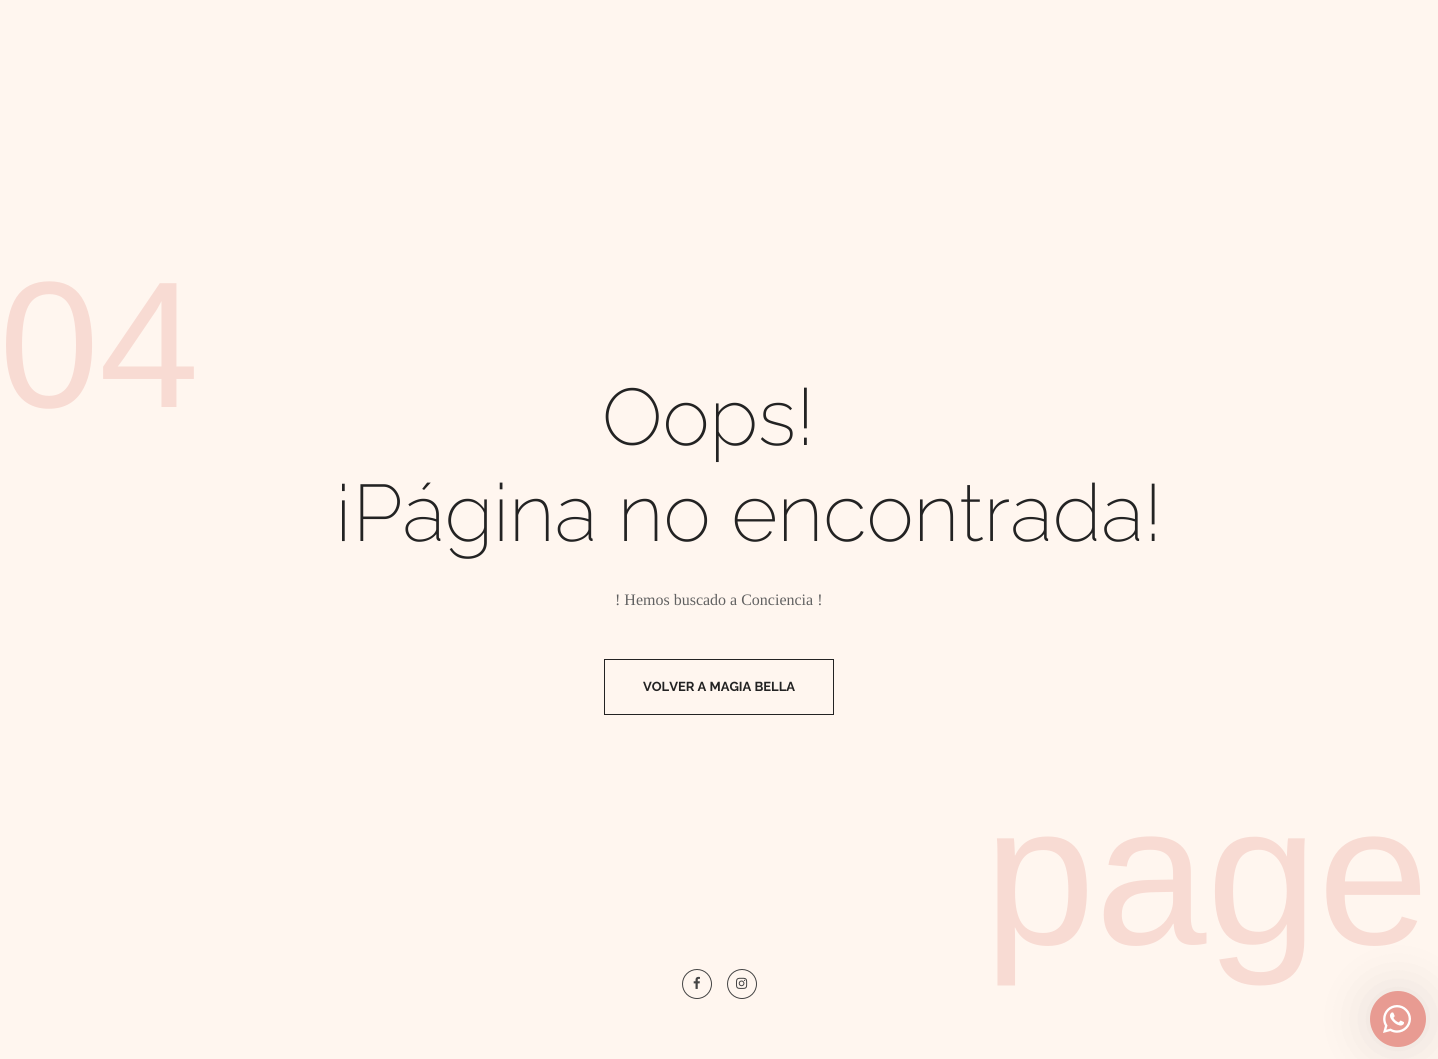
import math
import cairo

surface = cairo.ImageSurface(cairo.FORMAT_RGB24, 1438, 1059)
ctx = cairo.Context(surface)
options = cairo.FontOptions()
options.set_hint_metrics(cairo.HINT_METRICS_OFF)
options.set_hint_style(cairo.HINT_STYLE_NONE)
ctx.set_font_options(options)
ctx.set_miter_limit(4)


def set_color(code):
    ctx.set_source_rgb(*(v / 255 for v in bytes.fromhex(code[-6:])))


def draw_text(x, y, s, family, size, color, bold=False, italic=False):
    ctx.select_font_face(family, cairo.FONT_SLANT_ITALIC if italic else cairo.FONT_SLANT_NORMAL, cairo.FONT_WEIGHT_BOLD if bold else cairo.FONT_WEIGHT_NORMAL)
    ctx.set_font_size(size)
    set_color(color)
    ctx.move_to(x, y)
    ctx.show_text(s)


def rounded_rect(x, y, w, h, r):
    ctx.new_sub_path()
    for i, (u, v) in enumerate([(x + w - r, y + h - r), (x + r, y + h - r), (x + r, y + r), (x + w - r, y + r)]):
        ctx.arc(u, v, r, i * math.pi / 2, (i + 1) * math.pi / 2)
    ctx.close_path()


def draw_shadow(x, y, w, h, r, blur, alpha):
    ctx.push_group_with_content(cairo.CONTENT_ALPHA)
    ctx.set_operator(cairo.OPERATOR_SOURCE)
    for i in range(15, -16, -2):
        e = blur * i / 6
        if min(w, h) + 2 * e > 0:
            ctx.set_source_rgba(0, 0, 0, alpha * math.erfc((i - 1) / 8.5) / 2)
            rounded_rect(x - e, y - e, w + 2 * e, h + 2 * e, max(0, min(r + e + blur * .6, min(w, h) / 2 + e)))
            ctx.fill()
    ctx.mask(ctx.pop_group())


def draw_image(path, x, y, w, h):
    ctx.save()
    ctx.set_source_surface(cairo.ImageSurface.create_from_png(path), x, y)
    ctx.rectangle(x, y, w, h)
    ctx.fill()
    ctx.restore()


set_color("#fff6ef")
ctx.paint()
draw_text(-1, 407, "04", "Liberation Sans", 180, "#f8dbd3")
draw_text(602, 445, "Oops!", "Raleway ExtraLight", 80, "#232323")
draw_text(334, 541, "¡Página no encontrada!", "Raleway ExtraLight", 80, "#232323")
draw_text(615, 605, "! Hemos buscado a Conciencia !", "Liberation Serif", 16, "#616161")
ctx.rectangle(604.5, 659.5, 229, 55)
set_color("#232323")
ctx.set_line_width(1)
ctx.stroke()
draw_text(643, 691, "VOLVER A MAGIA BELLA", "Raleway", 13, "#232323", bold=True)
ctx.new_path()
ctx.arc(697, 984, 14.5, 0, 2 * math.pi)
set_color("#444444")
ctx.stroke()
draw_image("assets/img1.png", 693, 976, 7, 13)
ctx.arc(742, 984, 14.5, 0, 2 * math.pi)
ctx.stroke()
draw_image("assets/img2.png", 736, 977, 12, 12)
draw_text(984, 944, "page", "Liberation Sans", 200, "#f8dbd3")
set_color("#000000")
draw_shadow(1370, 991, 56, 56, 28, 25, 0.1)
set_color("#e89b92")
ctx.arc(1398, 1019, 28, 0, 2 * math.pi)
ctx.fill()
draw_image("assets/img3.png", 1383, 1005, 28, 28)
surface.write_to_png("output.png")
